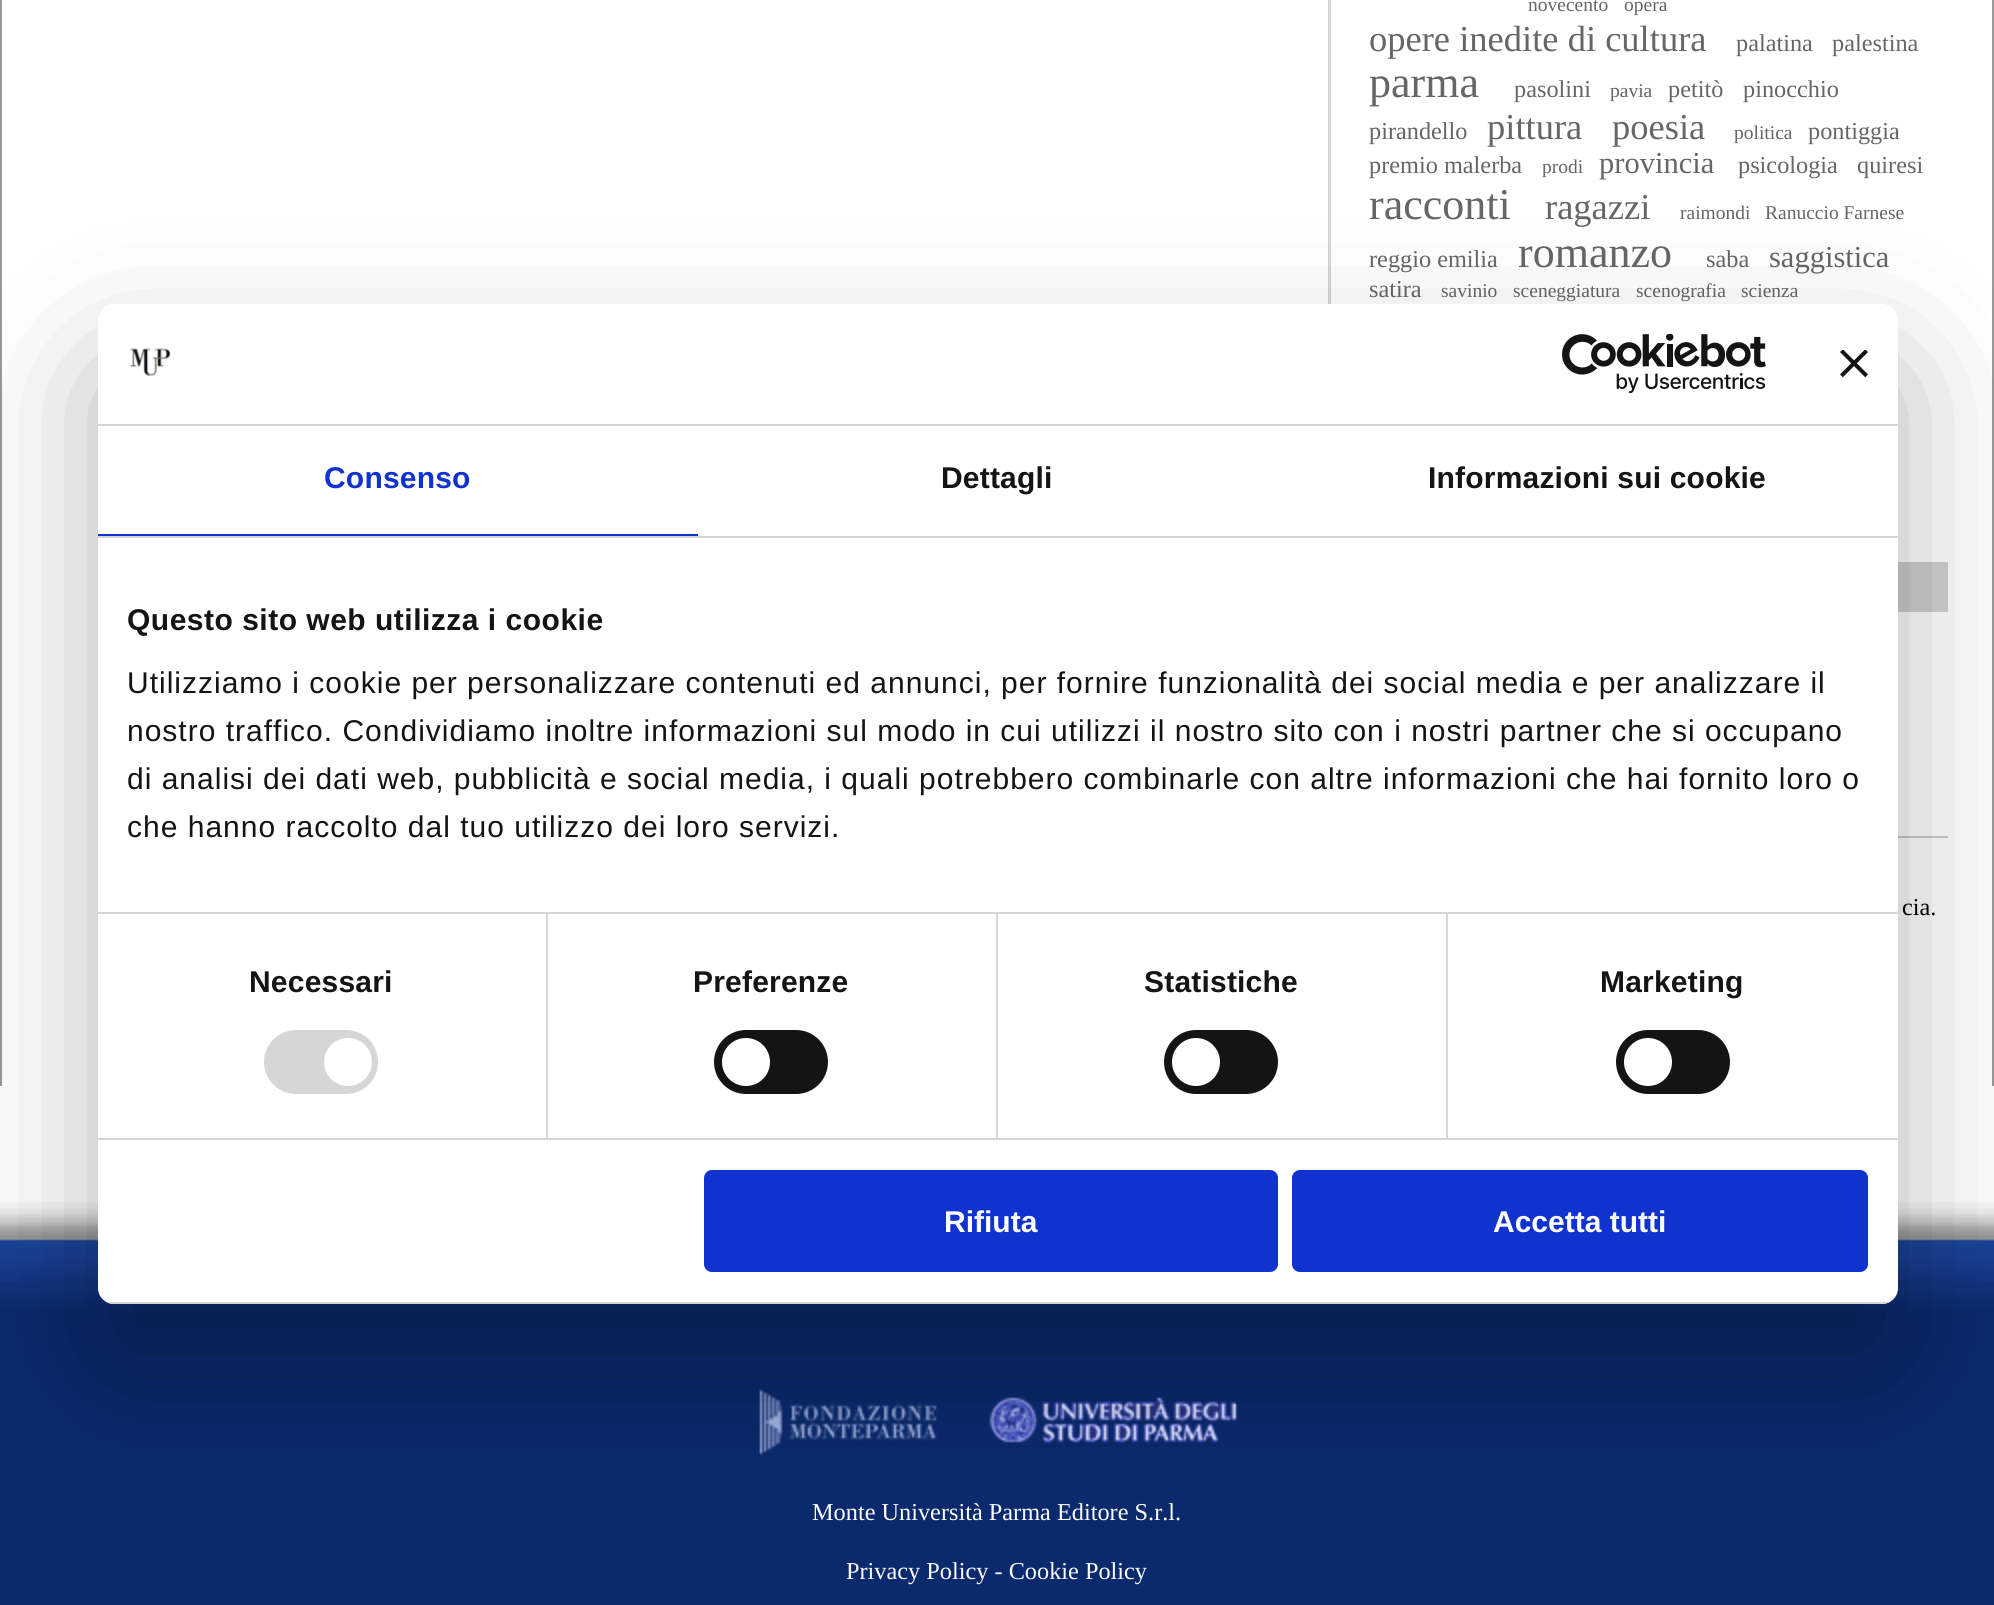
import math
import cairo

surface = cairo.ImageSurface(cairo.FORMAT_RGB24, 1994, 1605)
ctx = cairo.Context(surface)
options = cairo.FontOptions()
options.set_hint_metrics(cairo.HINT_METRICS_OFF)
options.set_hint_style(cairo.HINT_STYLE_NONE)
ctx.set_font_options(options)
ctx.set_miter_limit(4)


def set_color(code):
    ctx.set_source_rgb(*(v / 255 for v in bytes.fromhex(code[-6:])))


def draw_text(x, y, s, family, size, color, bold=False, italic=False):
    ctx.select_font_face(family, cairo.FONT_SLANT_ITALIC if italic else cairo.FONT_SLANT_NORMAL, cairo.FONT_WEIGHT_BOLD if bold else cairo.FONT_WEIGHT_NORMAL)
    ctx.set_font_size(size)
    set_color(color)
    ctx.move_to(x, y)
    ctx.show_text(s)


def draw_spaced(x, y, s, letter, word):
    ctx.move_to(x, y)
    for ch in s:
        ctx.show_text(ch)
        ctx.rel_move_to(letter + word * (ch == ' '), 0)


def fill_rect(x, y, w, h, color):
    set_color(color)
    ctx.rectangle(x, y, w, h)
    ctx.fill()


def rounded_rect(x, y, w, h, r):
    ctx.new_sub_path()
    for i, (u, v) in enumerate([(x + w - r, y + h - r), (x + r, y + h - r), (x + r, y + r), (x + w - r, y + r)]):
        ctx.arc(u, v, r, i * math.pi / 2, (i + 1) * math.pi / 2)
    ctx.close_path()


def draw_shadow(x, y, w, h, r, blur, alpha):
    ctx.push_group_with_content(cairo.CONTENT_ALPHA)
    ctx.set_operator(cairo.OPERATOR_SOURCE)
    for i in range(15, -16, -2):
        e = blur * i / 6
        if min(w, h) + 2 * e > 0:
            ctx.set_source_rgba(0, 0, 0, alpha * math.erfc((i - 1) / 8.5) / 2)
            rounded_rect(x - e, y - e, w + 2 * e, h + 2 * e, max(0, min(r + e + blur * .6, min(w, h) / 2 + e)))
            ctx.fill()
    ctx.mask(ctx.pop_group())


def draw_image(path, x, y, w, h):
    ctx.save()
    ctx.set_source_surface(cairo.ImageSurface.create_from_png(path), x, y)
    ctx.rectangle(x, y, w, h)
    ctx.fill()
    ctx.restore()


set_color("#ffffff")
ctx.paint()
fill_rect(1992, 0, 2, 1086, "#999999")
fill_rect(0, 0, 2, 1086, "#999999")
fill_rect(1328, 0, 3, 304, "#d6d6d6")
draw_text(1528, 11, "novecento", "Liberation Serif", 19.5, "#666666")
draw_text(1624, 11, "opera", "Liberation Serif", 19.5, "#666666")
draw_text(1369, 51, "opere inedite di cultura", "Liberation Serif", 36.5, "#666666")
draw_text(1736, 51, "palatina", "Liberation Serif", 24.3, "#666666")
draw_text(1832, 51, "palestina", "Liberation Serif", 24.3, "#666666")
draw_text(1369, 97, "parma", "Liberation Serif", 44, "#666666")
draw_text(1514, 97, "pasolini", "Liberation Serif", 24.3, "#666666")
draw_text(1610, 97, "pavia", "Liberation Serif", 19.5, "#666666")
draw_text(1668, 97, "petitò", "Liberation Serif", 24.3, "#666666")
draw_text(1743, 97, "pinocchio", "Liberation Serif", 24.3, "#666666")
draw_text(1369, 139, "pirandello", "Liberation Serif", 24.3, "#666666")
draw_text(1487, 139, "pittura", "Liberation Serif", 36.5, "#666666")
draw_text(1612, 139, "poesia", "Liberation Serif", 36.5, "#666666")
draw_text(1734, 139, "politica", "Liberation Serif", 19.5, "#666666")
draw_text(1808, 139, "pontiggia", "Liberation Serif", 24.3, "#666666")
draw_text(1369, 173, "premio malerba", "Liberation Serif", 24.3, "#666666")
draw_text(1542, 173, "prodi", "Liberation Serif", 19.5, "#666666")
draw_text(1599, 173, "provincia", "Liberation Serif", 30.5, "#666666")
draw_text(1738, 173, "psicologia", "Liberation Serif", 24.3, "#666666")
draw_text(1857, 173, "quiresi", "Liberation Serif", 24.3, "#666666")
draw_text(1369, 219, "racconti", "Liberation Serif", 44, "#666666")
draw_text(1545, 219, "ragazzi", "Liberation Serif", 36.5, "#666666")
draw_text(1680, 219, "raimondi", "Liberation Serif", 19.5, "#666666")
draw_text(1765, 219, "Ranuccio Farnese", "Liberation Serif", 19.5, "#666666")
draw_text(1369, 267, "reggio emilia", "Liberation Serif", 24.3, "#666666")
draw_text(1518, 267, "romanzo", "Liberation Serif", 44, "#666666")
draw_text(1706, 267, "saba", "Liberation Serif", 24.3, "#666666")
draw_text(1769, 267, "saggistica", "Liberation Serif", 30.5, "#666666")
draw_text(1369, 297, "satira", "Liberation Serif", 24.3, "#666666")
draw_text(1441, 297, "savinio", "Liberation Serif", 19.5, "#666666")
draw_text(1513, 297, "sceneggiatura", "Liberation Serif", 19.5, "#666666")
draw_text(1636, 297, "scenografia", "Liberation Serif", 19.5, "#666666")
draw_text(1741, 297, "scienza", "Liberation Serif", 19.5, "#666666")
fill_rect(1898, 562, 50, 50, "#d0d0d0")
fill_rect(1898, 836, 50, 2, "#cccccc")
draw_text(1902, 915, "cia.", "Liberation Serif", 24.3, "#000000")
draw_image("assets/img1.png", 0, 1202, 1994, 148)
fill_rect(0, 1350, 1994, 255, "#0a2a6d")
draw_image("assets/img2.png", 759, 1389, 178, 66)
draw_image("assets/img3.png", 989, 1397, 248, 46)
draw_text(812, 1520, "Monte Università Parma Editore S.r.l.", "Liberation Serif", 24.3, "#ffffff")
draw_text(846, 1579, "Privacy Policy - Cookie Policy", "Liberation Serif", 24.3, "#ffffff")
set_color("#000000")
draw_shadow(98, 368, 1800, 1000, 16, 68, 0.3)
set_color("#ffffff")
rounded_rect(98, 304, 1800, 1000, 16)
ctx.fill()
fill_rect(98, 424, 1800, 2, "#d6d6d6")
draw_image("assets/img4.png", 130, 347, 41, 29)
draw_image("assets/img5.png", 1562, 334, 204, 60)
draw_image("assets/img6.png", 1840, 350, 28, 28)
fill_rect(98, 536, 1800, 2, "#d6d6d6")
fill_rect(98, 534, 600, 2, "#1032cf")
ctx.select_font_face("Liberation Sans", cairo.FONT_SLANT_NORMAL, cairo.FONT_WEIGHT_BOLD)
ctx.set_font_size(30)
draw_spaced(324, 488, "Consenso", 0.2, 0)
set_color("#141414")
draw_spaced(941, 488, "Dettagli", 0.2, 0)
draw_spaced(1428, 488, "Informazioni sui cookie", 0.2, 0)
fill_rect(98, 912, 1800, 2, "#d6d6d6")
set_color("#141414")
draw_spaced(127, 630, "Questo sito web utilizza i cookie", 0.5, 0)
ctx.select_font_face("Liberation Sans")
draw_spaced(127, 693, "Utilizziamo i cookie per personalizzare contenuti ed annunci, per fornire funzionalità dei social media e per analizzare il", 1, 0)
draw_spaced(127, 741, "nostro traffico. Condividiamo inoltre informazioni sul modo in cui utilizzi il nostro sito con i nostri partner che si occupano", 1, 0)
draw_spaced(127, 789, "di analisi dei dati web, pubblicità e social media, i quali potrebbero combinarle con altre informazioni che hai fornito loro o", 1, 0)
draw_spaced(127, 837, "che hanno raccolto dal tuo utilizzo dei loro servizi.", 1, 0)
fill_rect(98, 1138, 1800, 2, "#d6d6d6")
fill_rect(546, 914, 2, 224, "#d6d6d6")
ctx.select_font_face("Liberation Sans", cairo.FONT_SLANT_NORMAL, cairo.FONT_WEIGHT_BOLD)
set_color("#141414")
draw_spaced(249, 992, "Necessari", 0.2, 0)
set_color("#d6d6d6")
rounded_rect(264, 1030, 114, 64, 32)
ctx.fill()
set_color("#ffffff")
ctx.arc(348, 1062, 24, 0, 2 * math.pi)
ctx.fill()
fill_rect(996, 914, 2, 224, "#d6d6d6")
set_color("#141414")
draw_spaced(693, 992, "Preferenze", 0.2, 0)
rounded_rect(714, 1030, 114, 64, 32)
ctx.fill()
set_color("#ffffff")
ctx.arc(746, 1062, 24, 0, 2 * math.pi)
ctx.fill()
fill_rect(1446, 914, 2, 224, "#d6d6d6")
set_color("#141414")
draw_spaced(1144, 992, "Statistiche", 0.2, 0)
rounded_rect(1164, 1030, 114, 64, 32)
ctx.fill()
set_color("#ffffff")
ctx.arc(1196, 1062, 24, 0, 2 * math.pi)
ctx.fill()
set_color("#141414")
draw_spaced(1600, 992, "Marketing", 0.2, 0)
rounded_rect(1616, 1030, 114, 64, 32)
ctx.fill()
set_color("#ffffff")
ctx.arc(1648, 1062, 24, 0, 2 * math.pi)
ctx.fill()
ctx.save()
rounded_rect(98, 304, 1800, 1000, 16)
ctx.clip()
fill_rect(98, 1302, 1800, 2, "#d6d6d6")
ctx.restore()
set_color("#1032cf")
rounded_rect(706, 1172, 570, 98, 6)
ctx.fill_preserve()
ctx.set_line_width(4)
ctx.stroke()
draw_text(944, 1232, "Rifiuta", "Liberation Sans", 30, "#ffffff", bold=True)
set_color("#1032cf")
rounded_rect(1294, 1172, 572, 98, 6)
ctx.fill_preserve()
ctx.stroke()
draw_text(1493, 1232, "Accetta tutti", "Liberation Sans", 30, "#ffffff", bold=True)
surface.write_to_png("output.png")
